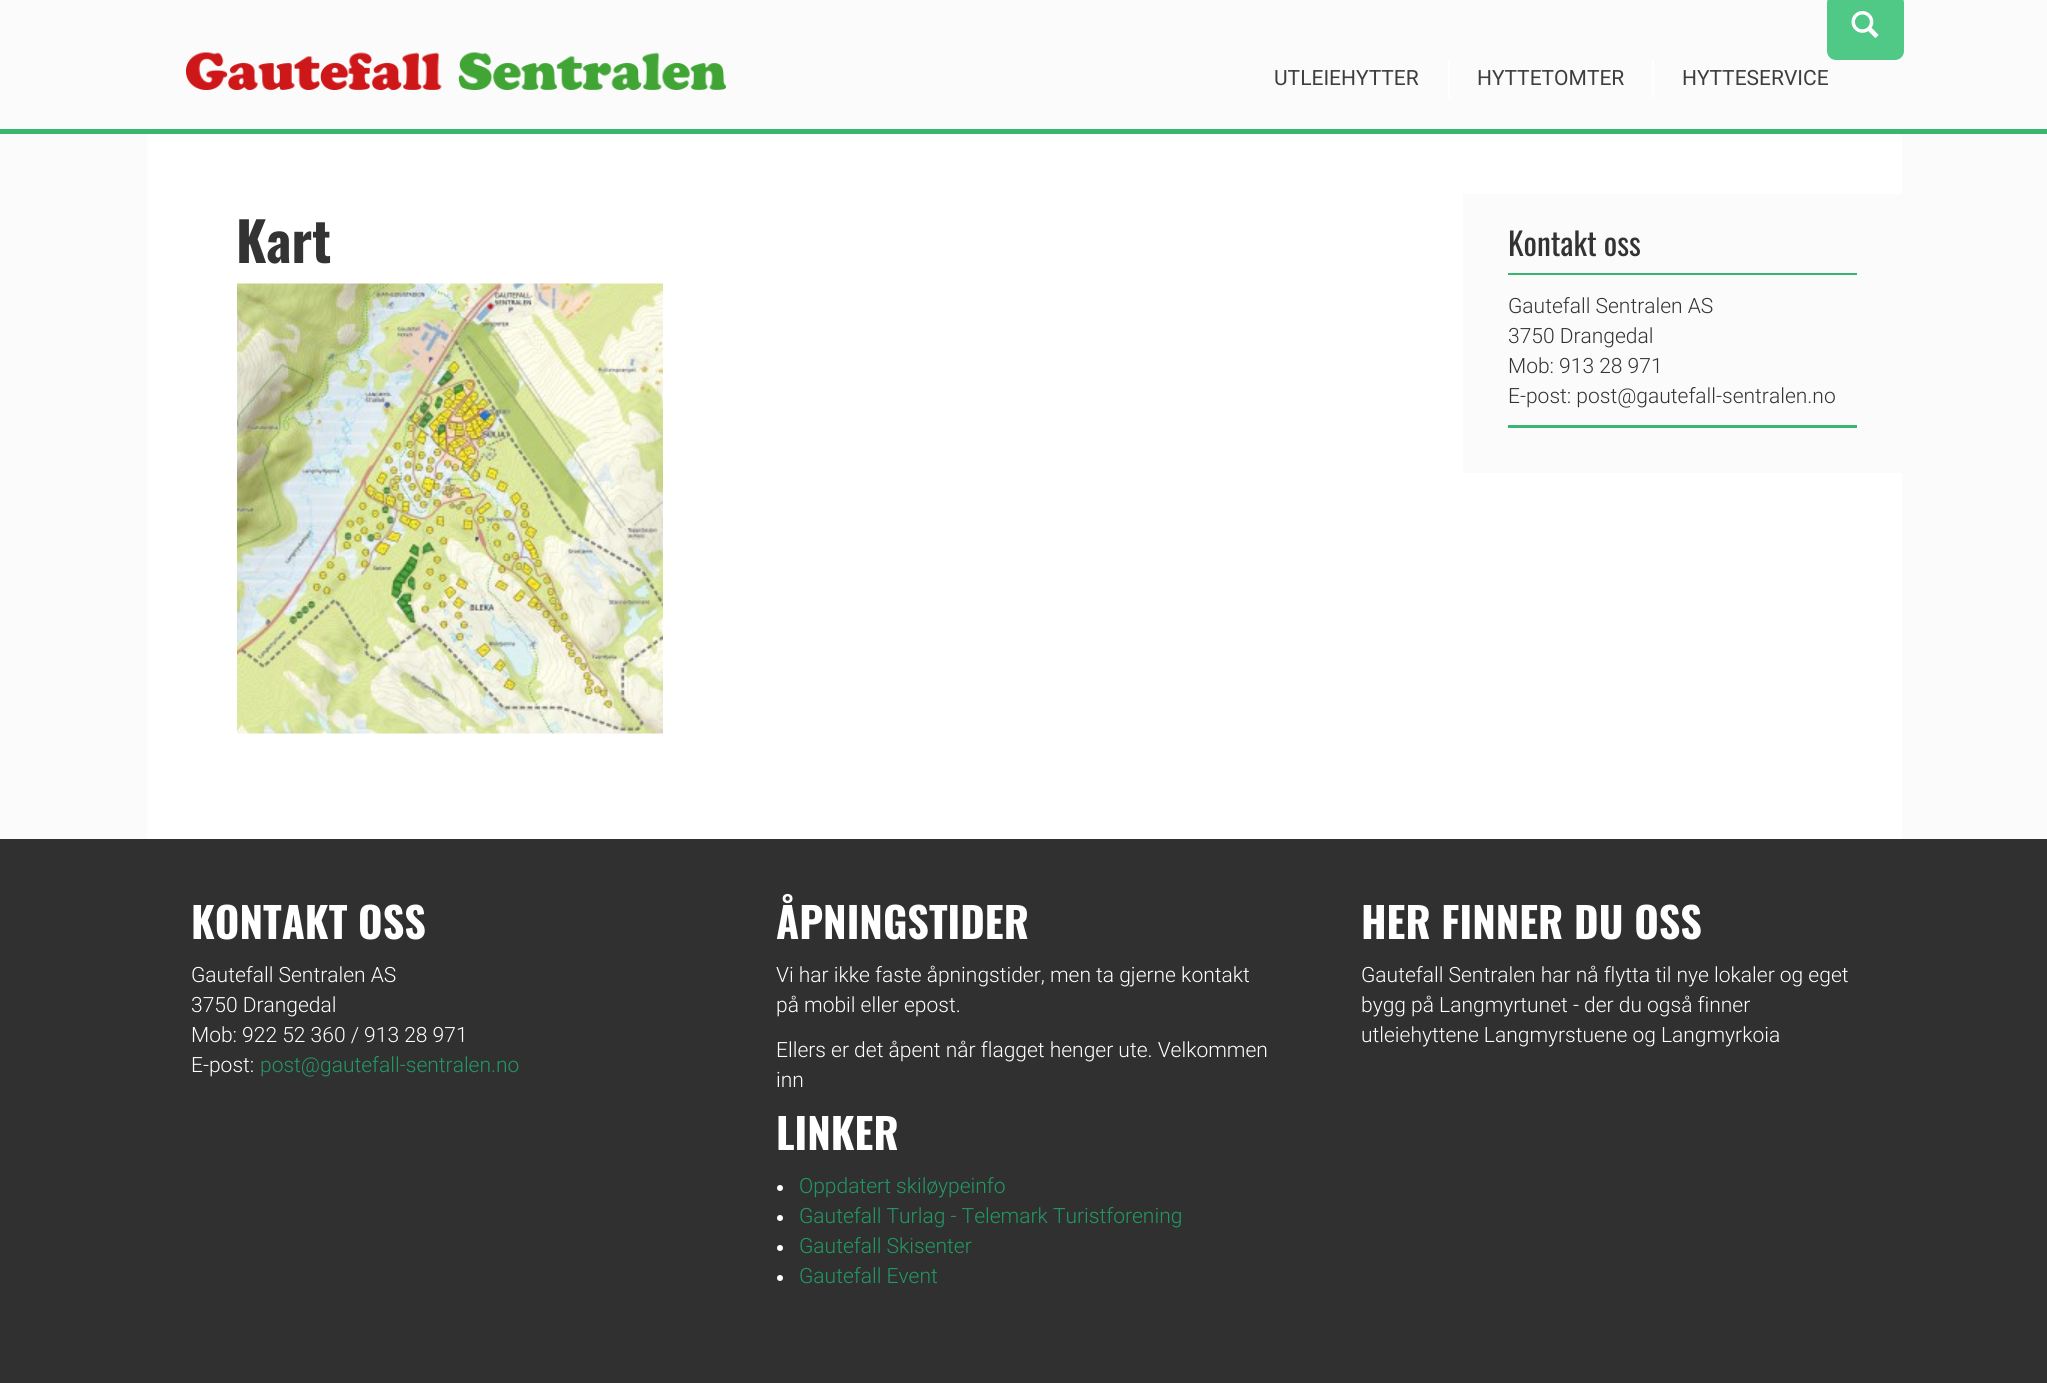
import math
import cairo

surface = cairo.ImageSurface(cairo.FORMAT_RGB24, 2047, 1383)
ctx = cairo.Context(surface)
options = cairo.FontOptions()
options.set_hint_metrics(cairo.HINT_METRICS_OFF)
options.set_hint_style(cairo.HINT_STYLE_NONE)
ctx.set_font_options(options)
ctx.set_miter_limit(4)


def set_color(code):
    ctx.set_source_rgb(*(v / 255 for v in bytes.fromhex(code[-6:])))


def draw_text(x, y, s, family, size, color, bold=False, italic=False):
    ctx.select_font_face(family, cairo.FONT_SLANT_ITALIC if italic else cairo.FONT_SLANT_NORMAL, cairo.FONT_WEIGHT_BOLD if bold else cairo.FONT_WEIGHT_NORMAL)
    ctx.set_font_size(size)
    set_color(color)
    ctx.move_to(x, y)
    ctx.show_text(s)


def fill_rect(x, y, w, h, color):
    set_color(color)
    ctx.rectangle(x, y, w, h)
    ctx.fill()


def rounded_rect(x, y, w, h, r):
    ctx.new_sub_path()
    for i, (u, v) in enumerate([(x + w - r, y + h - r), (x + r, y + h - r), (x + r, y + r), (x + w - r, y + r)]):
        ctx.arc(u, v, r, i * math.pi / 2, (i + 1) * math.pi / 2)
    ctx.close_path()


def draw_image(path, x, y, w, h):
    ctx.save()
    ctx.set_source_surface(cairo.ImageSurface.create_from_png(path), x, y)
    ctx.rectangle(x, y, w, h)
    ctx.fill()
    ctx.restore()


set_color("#fcfbfb")
ctx.paint()
fill_rect(0, 129, 2047, 5, "#37b76f")
set_color("#51c986")
rounded_rect(1827, -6, 77, 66, 9)
ctx.fill()
draw_image("assets/img1.png", 1851, 11, 28, 27)
draw_image("assets/img2.png", 186, 52, 540, 38)
fill_rect(1448, 60, 2, 38, "#ffffff")
draw_text(1274, 85, "UTLEIEHYTTER", "Roboto", 21, "#3e3e3e")
fill_rect(1652, 60, 2, 38, "#ffffff")
draw_text(1477, 85, "HYTTETOMTER", "Roboto", 21, "#3e3e3e")
draw_text(1682, 85, "HYTTESERVICE", "Roboto", 21, "#3e3e3e")
fill_rect(147, 134, 1755, 705, "#ffffff")
draw_text(236, 263, "Kart", "Oswald", 54, "#333333", bold=True)
draw_image("assets/img3.png", 237, 283, 426, 451)
fill_rect(1463, 194, 439, 279, "#fcfbfb")
fill_rect(1508, 273, 349, 2, "#37b76f")
draw_text(1508, 256, "Kontakt oss", "Oswald", 31.5, "#333333")
fill_rect(1508, 425, 349, 3, "#37b76f")
draw_text(1508, 313, "Gautefall Sentralen AS", "Roboto Light", 21, "#333333")
draw_text(1508, 343, "3750 Drangedal", "Roboto Light", 21, "#333333")
draw_text(1508, 373, "Mob: 913 28 971", "Roboto Light", 21, "#333333")
draw_text(1508, 403, "E-post: post@gautefall-sentralen.no", "Roboto Light", 21, "#333333")
fill_rect(0, 839, 2047, 544, "#2f302f")
draw_text(191, 939, "KONTAKT OSS", "Oswald", 42, "#ffffff", bold=True)
draw_text(191, 982, "Gautefall Sentralen AS", "Roboto Light", 21, "#ffffff")
draw_text(191, 1012, "3750 Drangedal", "Roboto Light", 21, "#ffffff")
draw_text(191, 1042, "Mob: 922 52 360 / 913 28 971", "Roboto Light", 21, "#ffffff")
draw_text(191, 1072, "E-post:", "Roboto Light", 21, "#ffffff")
draw_text(260, 1072, "post@gautefall-sentralen.no", "Roboto Light", 21, "#239866")
draw_text(776, 939, "ÅPNINGSTIDER", "Oswald", 42, "#ffffff", bold=True)
draw_text(776, 982, "Vi har ikke faste åpningstider, men ta gjerne kontakt", "Roboto Light", 21, "#ffffff")
draw_text(776, 1012, "på mobil eller epost.", "Roboto Light", 21, "#ffffff")
draw_text(776, 1057, "Ellers er det åpent når flagget henger ute. Velkommen", "Roboto Light", 21, "#ffffff")
draw_text(776, 1087, "inn", "Roboto Light", 21, "#ffffff")
draw_text(776, 1150, "LINKER", "Oswald", 42, "#ffffff", bold=True)
ctx.new_path()
ctx.arc(780, 1188, 3, 0, 2 * math.pi)
ctx.fill()
draw_text(799, 1193, "Oppdatert skiløypeinfo", "Roboto Light", 21, "#239866")
set_color("#ffffff")
ctx.new_path()
ctx.arc(780, 1218, 3, 0, 2 * math.pi)
ctx.fill()
draw_text(799, 1223, "Gautefall Turlag - Telemark Turistforening", "Roboto Light", 21, "#239866")
set_color("#ffffff")
ctx.new_path()
ctx.arc(780, 1248, 3, 0, 2 * math.pi)
ctx.fill()
draw_text(799, 1253, "Gautefall Skisenter", "Roboto Light", 21, "#239866")
set_color("#ffffff")
ctx.new_path()
ctx.arc(780, 1278, 3, 0, 2 * math.pi)
ctx.fill()
draw_text(799, 1283, "Gautefall Event", "Roboto Light", 21, "#239866")
draw_text(1361, 939, "HER FINNER DU OSS", "Oswald", 42, "#ffffff", bold=True)
draw_text(1361, 982, "Gautefall Sentralen har nå flytta til nye lokaler og eget", "Roboto Light", 21, "#ffffff")
draw_text(1361, 1012, "bygg på Langmyrtunet - der du også finner", "Roboto Light", 21, "#ffffff")
draw_text(1361, 1042, "utleiehyttene Langmyrstuene og Langmyrkoia", "Roboto Light", 21, "#ffffff")
surface.write_to_png("output.png")
